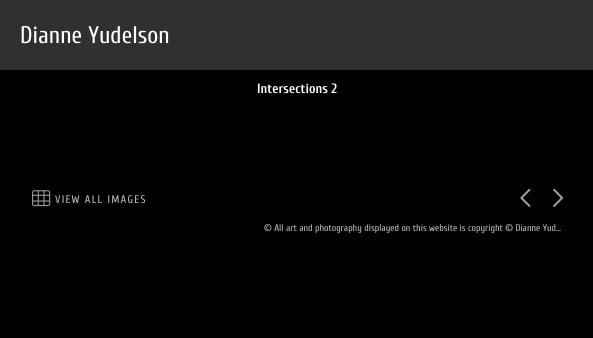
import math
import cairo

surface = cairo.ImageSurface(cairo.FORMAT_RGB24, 593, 338)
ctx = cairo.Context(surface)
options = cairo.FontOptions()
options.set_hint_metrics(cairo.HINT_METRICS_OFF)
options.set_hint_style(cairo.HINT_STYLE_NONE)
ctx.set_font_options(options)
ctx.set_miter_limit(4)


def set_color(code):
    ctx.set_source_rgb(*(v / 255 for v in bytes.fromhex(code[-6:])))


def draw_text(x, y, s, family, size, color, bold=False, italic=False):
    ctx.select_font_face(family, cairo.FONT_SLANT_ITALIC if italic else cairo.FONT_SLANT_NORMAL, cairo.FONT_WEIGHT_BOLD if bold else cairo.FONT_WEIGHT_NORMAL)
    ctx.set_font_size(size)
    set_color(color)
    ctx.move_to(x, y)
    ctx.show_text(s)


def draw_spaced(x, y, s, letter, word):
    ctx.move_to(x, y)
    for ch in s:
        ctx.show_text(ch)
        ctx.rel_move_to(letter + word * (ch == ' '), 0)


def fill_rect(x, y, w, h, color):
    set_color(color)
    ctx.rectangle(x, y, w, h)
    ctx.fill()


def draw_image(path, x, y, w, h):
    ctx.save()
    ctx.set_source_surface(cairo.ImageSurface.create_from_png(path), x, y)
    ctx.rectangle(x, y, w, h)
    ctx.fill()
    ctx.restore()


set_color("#000000")
ctx.paint()
fill_rect(0, 0, 593, 70, "#303030")
draw_text(20, 43, "Dianne Yudelson", "Cuprum", 24, "#ffffff")
draw_text(257, 93, "Intersections 2", "Cuprum", 13.5, "#ffffff", bold=True)
draw_image("assets/img1.png", 32, 190, 19, 17)
ctx.select_font_face("Cuprum")
ctx.set_font_size(11)
set_color("#bbbbbb")
draw_spaced(55, 203, "VIEW ALL IMAGES", 1.25, 0)
draw_image("assets/img2.png", 520, 188, 11, 19)
draw_image("assets/img3.png", 553, 188, 11, 19)
draw_text(264, 231, "© All art and photography displayed on this website is copyright © Dianne Yud…", "Cuprum", 9.6, "#bbbbbb")
surface.write_to_png("output.png")
